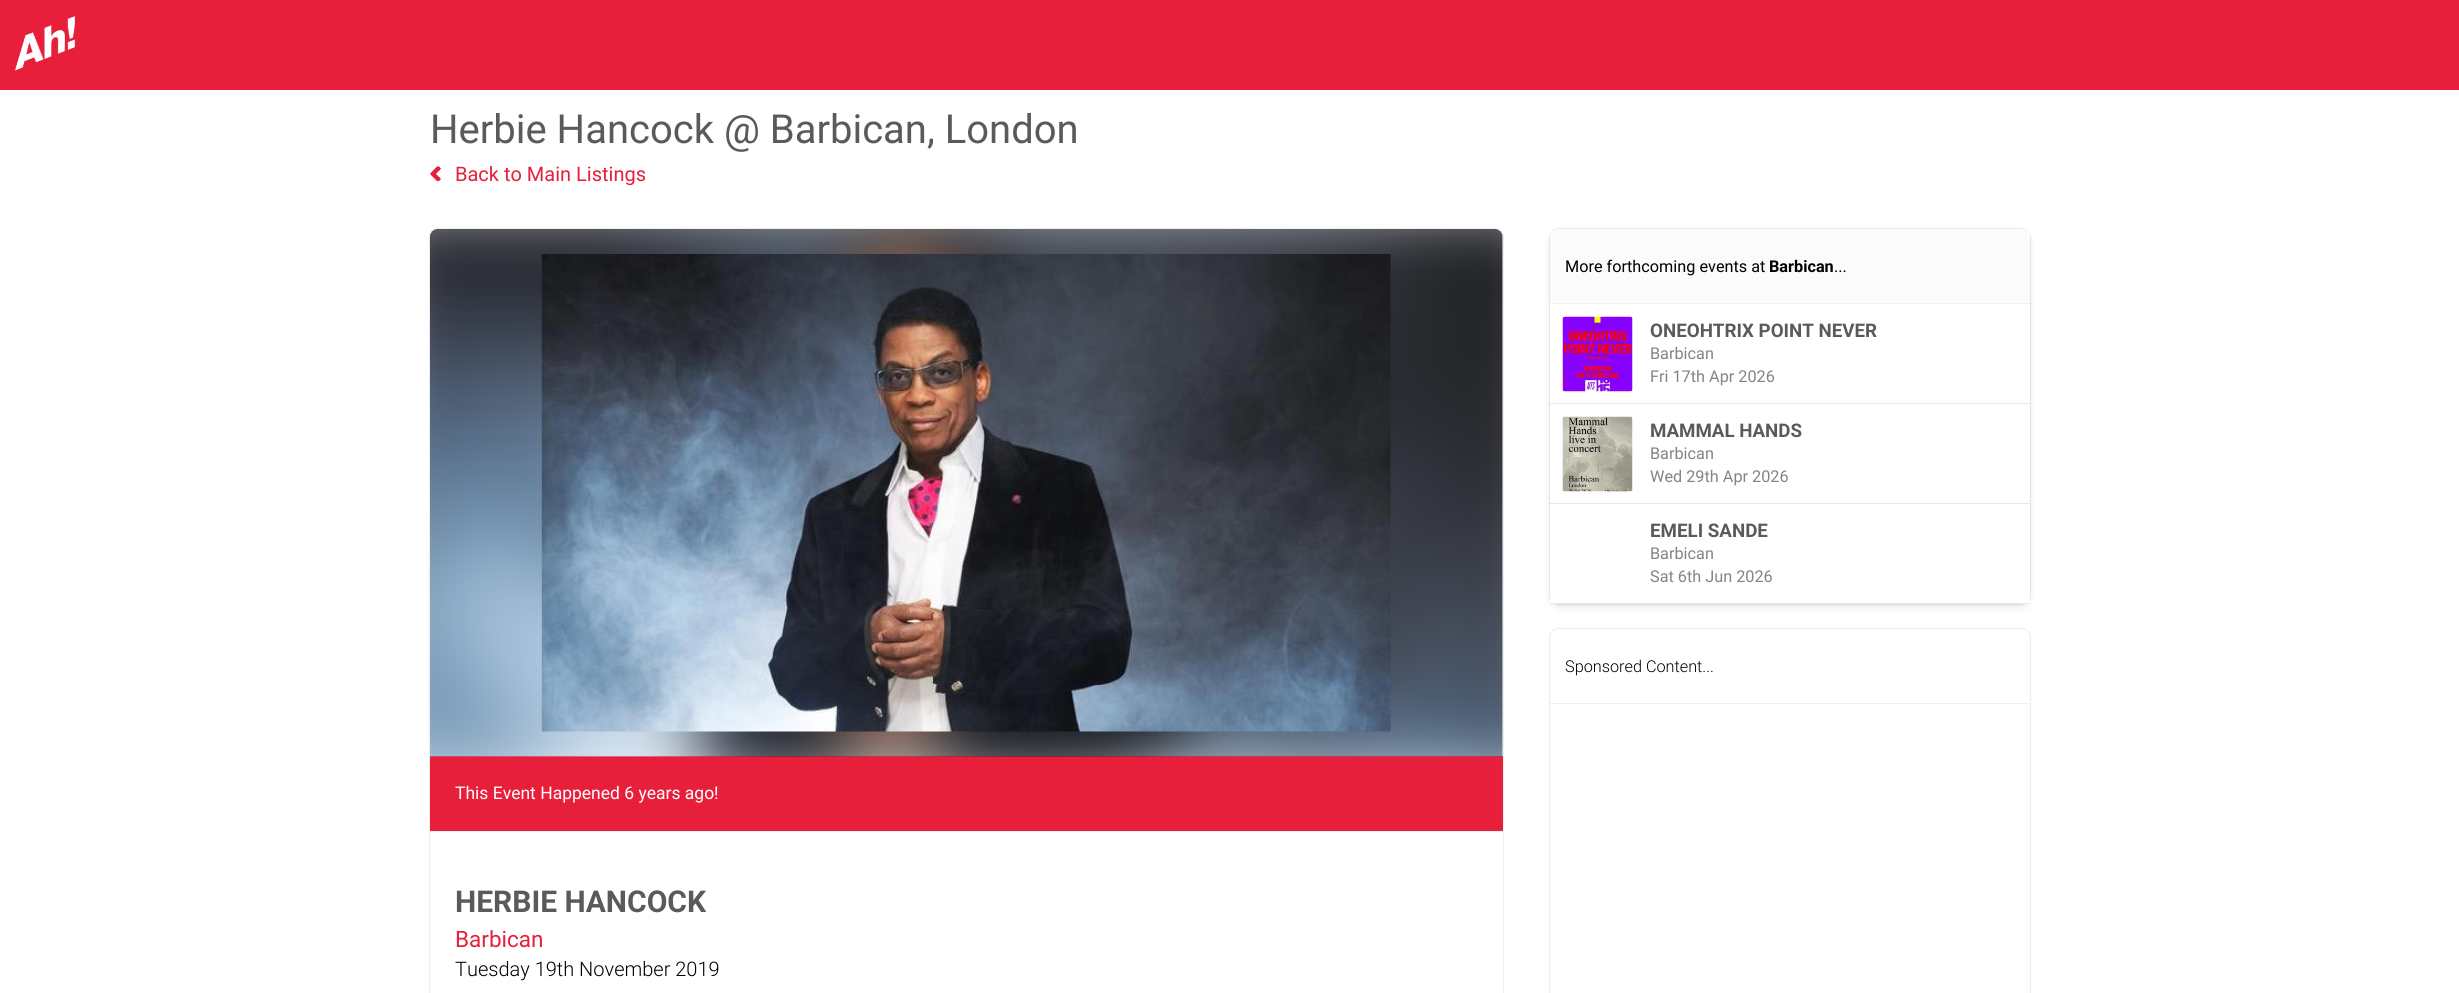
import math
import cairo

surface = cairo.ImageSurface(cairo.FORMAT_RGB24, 2459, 993)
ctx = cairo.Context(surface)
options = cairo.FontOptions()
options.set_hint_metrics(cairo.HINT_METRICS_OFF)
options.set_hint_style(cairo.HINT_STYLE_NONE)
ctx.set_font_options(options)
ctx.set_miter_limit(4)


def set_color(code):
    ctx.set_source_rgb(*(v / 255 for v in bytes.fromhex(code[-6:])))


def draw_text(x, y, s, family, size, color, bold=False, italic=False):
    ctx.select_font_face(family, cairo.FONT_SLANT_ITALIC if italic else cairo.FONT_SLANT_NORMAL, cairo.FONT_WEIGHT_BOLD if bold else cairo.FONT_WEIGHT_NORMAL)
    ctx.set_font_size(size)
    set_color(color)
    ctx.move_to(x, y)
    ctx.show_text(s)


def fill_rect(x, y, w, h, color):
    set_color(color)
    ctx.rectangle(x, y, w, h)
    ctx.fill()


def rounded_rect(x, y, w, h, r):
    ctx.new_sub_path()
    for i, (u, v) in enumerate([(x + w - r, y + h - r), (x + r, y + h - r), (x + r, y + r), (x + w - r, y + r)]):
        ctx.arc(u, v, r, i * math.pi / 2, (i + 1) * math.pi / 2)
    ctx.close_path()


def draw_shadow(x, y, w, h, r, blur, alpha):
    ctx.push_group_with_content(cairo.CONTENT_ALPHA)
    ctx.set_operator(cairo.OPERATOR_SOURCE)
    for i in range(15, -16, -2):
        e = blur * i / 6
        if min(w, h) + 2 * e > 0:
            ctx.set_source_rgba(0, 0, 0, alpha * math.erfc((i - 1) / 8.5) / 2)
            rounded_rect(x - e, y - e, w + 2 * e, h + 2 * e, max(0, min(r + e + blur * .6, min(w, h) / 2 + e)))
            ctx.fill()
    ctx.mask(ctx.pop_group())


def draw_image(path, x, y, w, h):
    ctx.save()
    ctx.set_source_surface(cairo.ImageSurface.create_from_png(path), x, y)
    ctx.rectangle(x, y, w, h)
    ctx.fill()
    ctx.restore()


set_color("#ffffff")
ctx.paint()
fill_rect(0, 0, 2459, 90, "#e71f3b")
draw_image("assets/img1.png", 15, 16, 60, 55)
draw_text(430, 143, "Herbie Hancock @ Barbican, London", "Roboto", 40, "#5a5a5a")
set_color("#e71f3b")
ctx.new_path()
ctx.move_to(440, 178.5)
ctx.line_to(435.5, 174)
ctx.line_to(440, 169.5)
ctx.line_to(437, 166.5)
ctx.line_to(430, 174)
ctx.line_to(437, 181)
ctx.close_path()
ctx.fill()
ctx.new_path()
ctx.move_to(440, 178)
ctx.line_to(435.5, 174)
ctx.line_to(440.5, 168.5)
ctx.line_to(438, 166)
ctx.line_to(431, 173)
ctx.line_to(438, 180)
ctx.close_path()
ctx.fill()
ctx.new_path()
ctx.move_to(440, 169.5)
ctx.line_to(438, 167.5)
ctx.line_to(431, 174.5)
ctx.line_to(438, 181.5)
ctx.line_to(440.5, 179)
ctx.line_to(435.5, 174)
ctx.close_path()
ctx.fill()
ctx.new_path()
ctx.move_to(441, 179)
ctx.line_to(435.5, 174)
ctx.line_to(441, 168.5)
ctx.line_to(439, 166.5)
ctx.line_to(432, 174)
ctx.line_to(439, 181)
ctx.close_path()
ctx.fill()
draw_text(455, 181, "Back to Main Listings", "Roboto", 20, "#e71f3b")
set_color("#000000")
draw_shadow(1550, 233, 480, 375, 10, 4, 0.08)
set_color("#ffffff")
rounded_rect(1550, 229, 480, 375, 10)
ctx.fill()
ctx.save()
ctx.set_fill_rule(cairo.FILL_RULE_EVEN_ODD)
ctx.new_path()
ctx.move_to(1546, 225)
ctx.line_to(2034, 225)
ctx.line_to(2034, 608)
ctx.line_to(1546, 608)
ctx.close_path()
ctx.move_to(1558, 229)
ctx.line_to(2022, 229)
ctx.curve_to(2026.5, 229, 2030, 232.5, 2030, 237)
ctx.line_to(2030, 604)
ctx.line_to(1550, 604)
ctx.line_to(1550, 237)
ctx.curve_to(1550, 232.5, 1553.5, 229, 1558, 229)
ctx.close_path()
ctx.clip()
set_color("#000000")
draw_shadow(1550, 229, 480, 375, 8, 1, 0.2)
ctx.restore()
set_color("#fbfbfb")
ctx.new_path()
ctx.move_to(1558, 229)
ctx.line_to(2022, 229)
ctx.curve_to(2026.5, 229, 2030, 232.5, 2030, 237)
ctx.line_to(2030, 304)
ctx.line_to(1550, 304)
ctx.line_to(1550, 237)
ctx.curve_to(1550, 232.5, 1553.5, 229, 1558, 229)
ctx.close_path()
ctx.fill()
fill_rect(1550, 303, 480, 1, "#efefef")
draw_text(1565, 272, "More forthcoming events at", "Roboto", 16.25, "#000000")
draw_text(1769, 272, "Barbican", "Roboto", 16.25, "#000000", bold=True)
draw_text(1834, 272, "...", "Roboto", 16.25, "#000000")
fill_rect(1550, 403, 480, 1, "#e9e9e9")
draw_image("assets/img2.png", 1562, 316, 71, 76)
draw_text(1650, 337, "ONEOHTRIX POINT NEVER", "Roboto", 18.75, "#5a5a5a", bold=True)
draw_text(1650, 359, "Barbican", "Roboto", 16.25, "#848484")
draw_text(1650, 382, "Fri 17th Apr 2026", "Roboto", 16.25, "#848484")
fill_rect(1550, 503, 480, 1, "#e9e9e9")
draw_image("assets/img3.png", 1562, 416, 71, 76)
draw_text(1650, 437, "MAMMAL HANDS", "Roboto", 18.75, "#5a5a5a", bold=True)
draw_text(1650, 459, "Barbican", "Roboto", 16.25, "#848484")
draw_text(1650, 482, "Wed 29th Apr 2026", "Roboto", 16.25, "#848484")
fill_rect(1550, 596, 480, 7, "#ffffff")
fill_rect(1550, 603, 480, 1, "#e9e9e9")
draw_text(1650, 537, "EMELI SANDE", "Roboto", 18.75, "#5a5a5a", bold=True)
draw_text(1650, 559, "Barbican", "Roboto", 16.25, "#848484")
draw_text(1650, 582, "Sat 6th Jun 2026", "Roboto", 16.25, "#848484")
set_color("#000000")
draw_shadow(1550, 629, 480, 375, 8, 1, 0.2)
set_color("#ffffff")
rounded_rect(1550, 629, 480, 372, 8)
ctx.fill()
fill_rect(1550, 703, 480, 1, "#efefef")
draw_text(1565, 672, "Sponsored Content...", "Roboto Light", 16.25, "#000000")
set_color("#000000")
draw_shadow(430, 229, 1073, 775, 8, 1, 0.2)
set_color("#ffffff")
rounded_rect(430, 229, 1073, 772, 8)
ctx.fill()
fill_rect(430, 756, 1073, 75, "#e71f3b")
draw_image("assets/img4.png", 430, 229, 1073, 528)
draw_image("assets/img5.png", 541, 254, 850, 478)
draw_text(455, 799, "This Event Happened 6 years ago!", "Roboto", 17.5, "#ffffff")
fill_rect(430, 831, 1073, 1, "#efefef")
draw_text(455, 912, "HERBIE HANCOCK", "Roboto", 30, "#5a5a5a", bold=True)
draw_text(455, 947, "Barbican", "Roboto", 22.5, "#e71f3b")
draw_text(455, 976, "Tuesday 19th November 2019", "Roboto Light", 20, "#000000")
surface.write_to_png("output.png")
